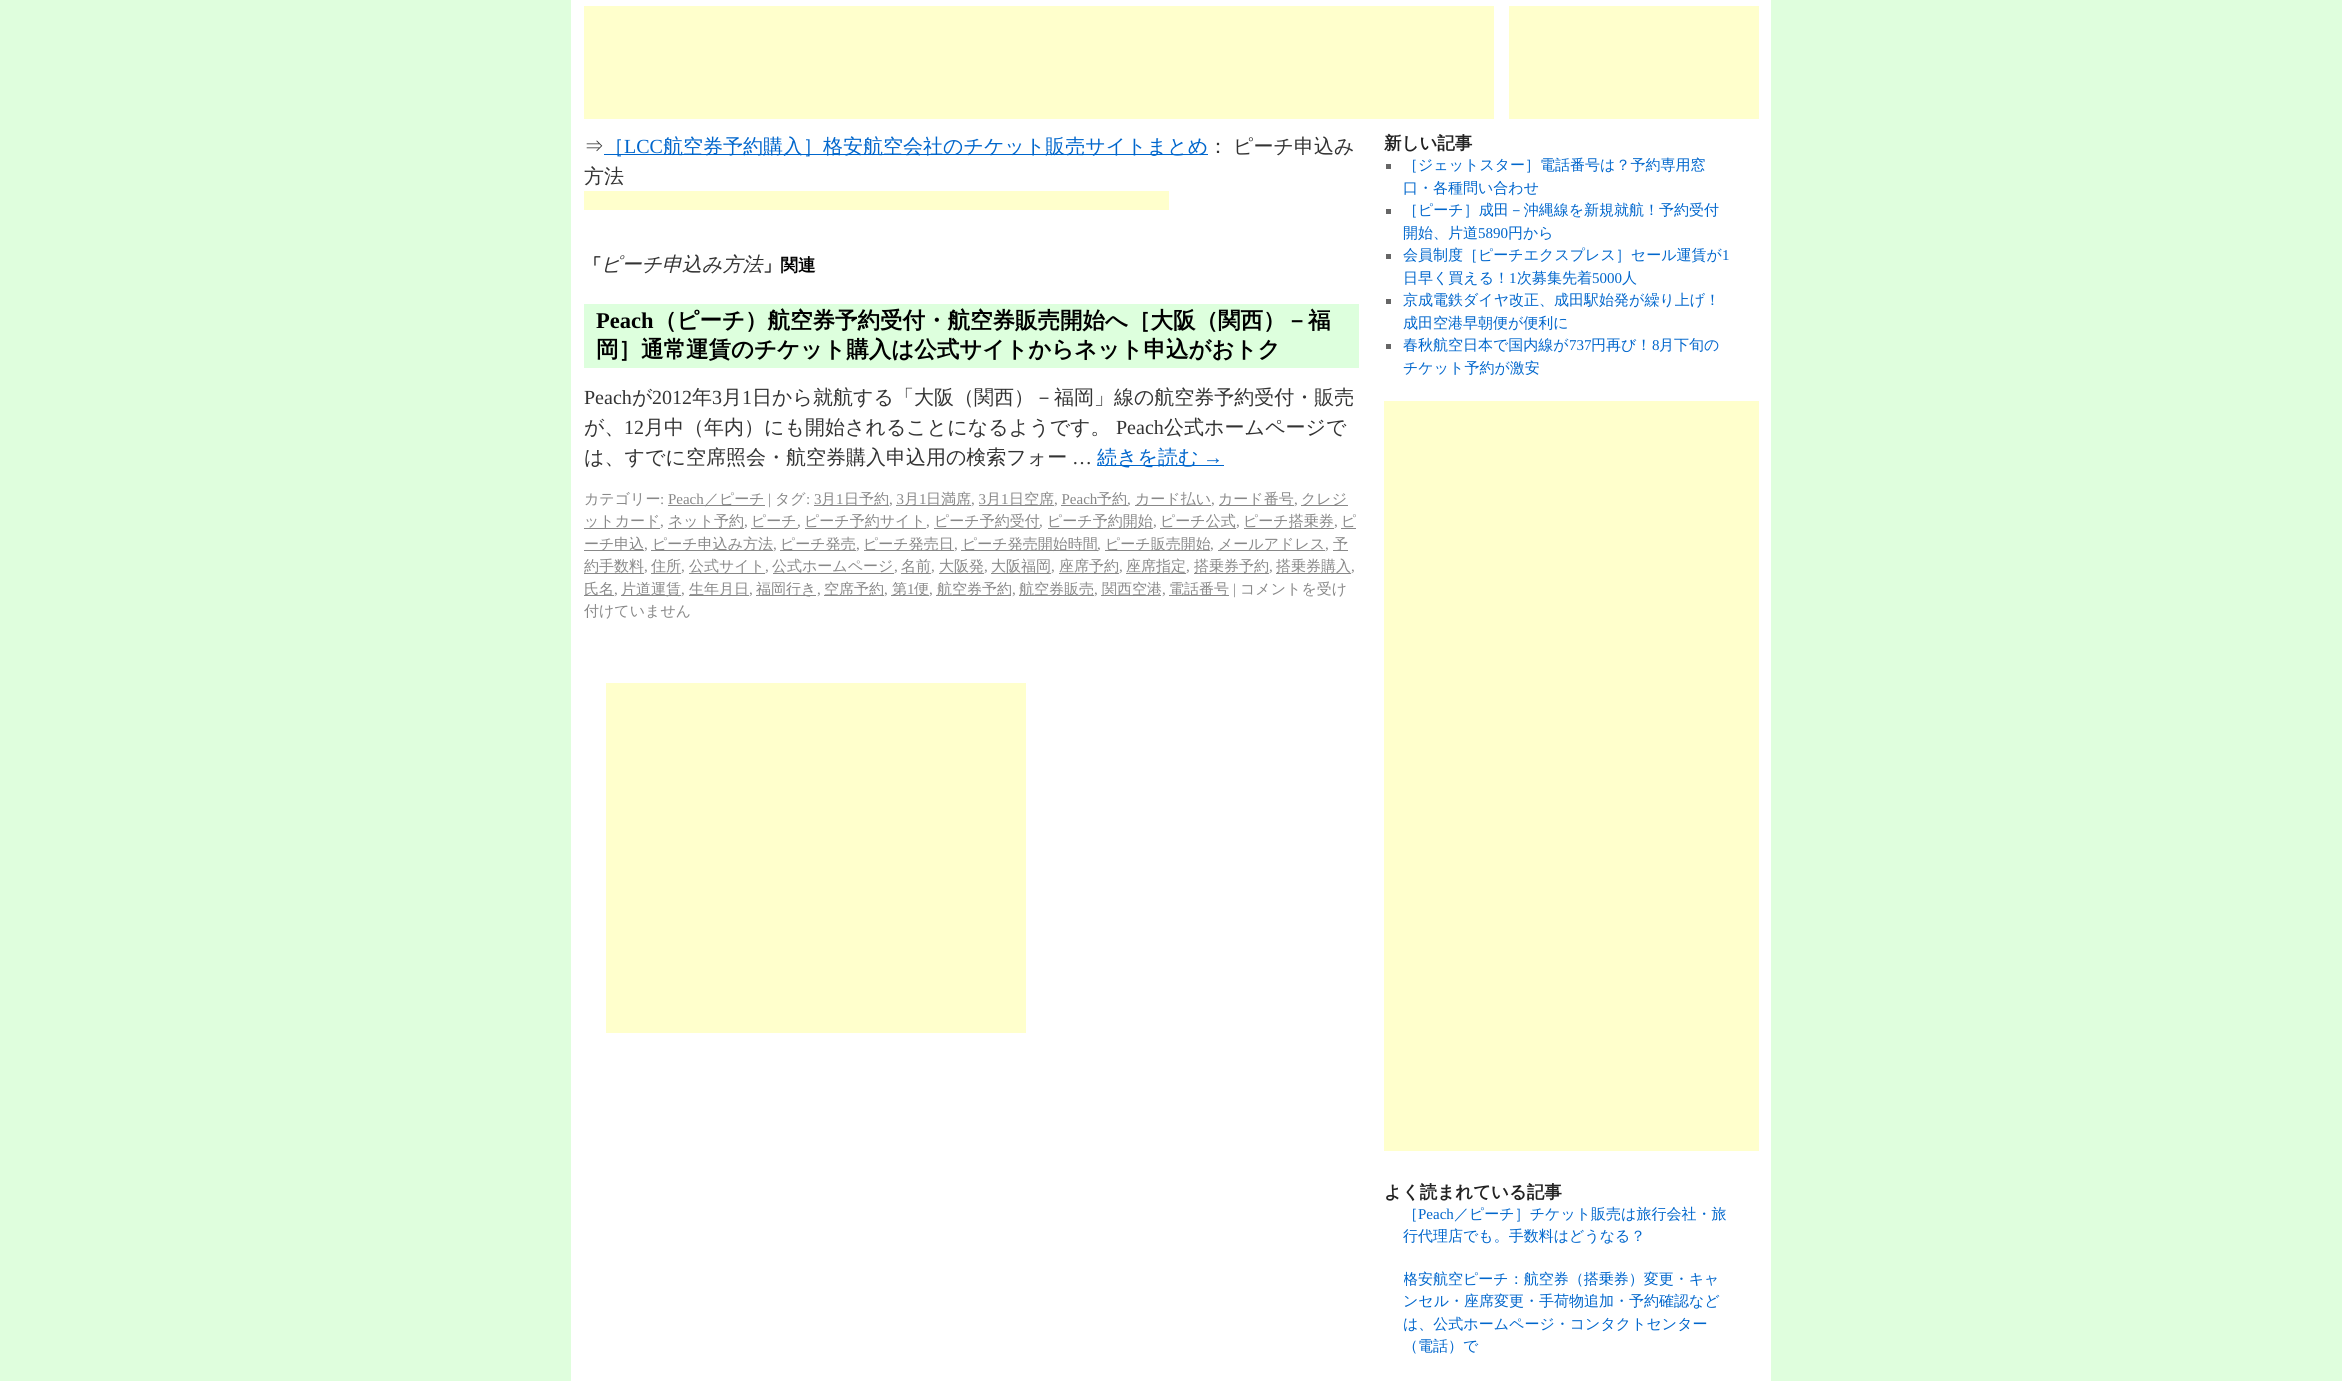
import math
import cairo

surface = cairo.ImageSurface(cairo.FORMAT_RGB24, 2342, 1381)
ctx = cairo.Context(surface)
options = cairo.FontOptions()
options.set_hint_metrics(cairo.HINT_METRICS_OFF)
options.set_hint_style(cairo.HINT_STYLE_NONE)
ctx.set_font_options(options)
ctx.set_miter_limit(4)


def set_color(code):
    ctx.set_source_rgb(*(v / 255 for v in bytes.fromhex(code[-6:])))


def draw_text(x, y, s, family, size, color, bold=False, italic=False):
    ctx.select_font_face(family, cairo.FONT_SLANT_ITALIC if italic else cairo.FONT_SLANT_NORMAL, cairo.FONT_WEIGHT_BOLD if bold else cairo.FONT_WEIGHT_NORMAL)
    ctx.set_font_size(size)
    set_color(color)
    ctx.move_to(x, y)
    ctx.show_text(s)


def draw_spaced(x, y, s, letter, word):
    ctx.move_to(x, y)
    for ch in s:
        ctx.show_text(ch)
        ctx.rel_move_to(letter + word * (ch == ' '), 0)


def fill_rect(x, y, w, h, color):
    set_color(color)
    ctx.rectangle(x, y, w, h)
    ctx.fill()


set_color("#dffedd")
ctx.paint()
fill_rect(571, 0, 1200, 1381, "#ffffff")
fill_rect(584, 6, 910, 113, "#ffffcc")
fill_rect(1509, 6, 250, 113, "#ffffcc")
draw_text(584, 153, "⇒", "WenQuanYi Zen Hei Medium", 20, "#333333")
fill_rect(604, 154, 604, 1, "#0066cc")
draw_text(604, 153, "［", "WenQuanYi Zen Hei Medium", 20, "#0066cc")
draw_text(624, 153, "LCC", "Liberation Serif", 20, "#0066cc")
draw_text(663, 153, "航空券予約購入］格安航空会社のチケット販売サイトまとめ", "WenQuanYi Zen Hei Medium", 20, "#0066cc")
set_color("#333333")
draw_spaced(1208, 153, "： ピーチ申込み", 0, -1)
draw_text(584, 183, "方法", "WenQuanYi Zen Hei Medium", 20, "#333333")
fill_rect(584, 191, 585, 19, "#ffffcc")
draw_text(584, 271, "「", "WenQuanYi Zen Hei", 17.5, "#000000", bold=True)
draw_text(601, 271, "ピーチ申込み方法", "WenQuanYi Zen Hei Medium", 20, "#333333", italic=True)
draw_text(763, 271, "」関連", "WenQuanYi Zen Hei", 17.5, "#000000", bold=True)
fill_rect(584, 304, 775, 64, "#ddffdd")
draw_text(596, 328, "Peach", "Liberation Serif", 22.5, "#000000", bold=True)
draw_text(654, 328, "（ピーチ）航空券予約受付・航空券販売開始へ［大阪（関西）－福", "WenQuanYi Zen Hei", 22.5, "#000000", bold=True)
draw_text(596, 357, "岡］通常運賃のチケット購入は公式サイトからネット申込がおトク", "WenQuanYi Zen Hei", 22.5, "#000000", bold=True)
draw_text(584, 404, "Peach", "Liberation Serif", 20, "#333333")
draw_text(632, 404, "が", "WenQuanYi Zen Hei Medium", 20, "#333333")
draw_text(652, 404, "2012", "Liberation Serif", 20, "#333333")
draw_text(692, 404, "年", "WenQuanYi Zen Hei Medium", 20, "#333333")
draw_text(712, 404, "3", "Liberation Serif", 20, "#333333")
draw_text(722, 404, "月", "WenQuanYi Zen Hei Medium", 20, "#333333")
draw_text(742, 404, "1", "Liberation Serif", 20, "#333333")
draw_text(752, 404, "日から就航する「大阪（関西）－福岡」線の航空券予約受付・販売", "WenQuanYi Zen Hei Medium", 20, "#333333")
draw_text(584, 434, "が、", "WenQuanYi Zen Hei Medium", 20, "#333333")
draw_text(624, 434, "12", "Liberation Serif", 20, "#333333")
draw_text(644, 434, "月中（年内）にも開始されることになるようです。", "WenQuanYi Zen Hei Medium", 20, "#333333")
draw_text(1116, 434, "Peach", "Liberation Serif", 20, "#333333")
draw_text(1164, 434, "公式ホームページで", "WenQuanYi Zen Hei Medium", 20, "#333333")
draw_text(584, 464, "は、すでに空席照会・航空券購入申込用の検索フォー", "WenQuanYi Zen Hei Medium", 20, "#333333")
draw_text(1072, 464, "…", "Liberation Serif", 20, "#333333")
fill_rect(1098, 465, 126, 1, "#0066cc")
draw_text(1097, 464, "続きを読む", "WenQuanYi Zen Hei Medium", 20, "#0066cc")
draw_text(1203, 464, "→", "Liberation Serif", 20, "#0066cc")
draw_text(584, 504, "カテゴリー", "WenQuanYi Zen Hei Medium", 15, "#888888")
draw_text(660, 504, ": Peach", "Liberation Serif", 15, "#888888")
fill_rect(668, 505, 97, 1, "#888888")
draw_text(704, 504, "／ピーチ", "WenQuanYi Zen Hei Medium", 15, "#888888")
draw_text(768, 504, "|", "Liberation Serif", 15, "#888888")
draw_text(775, 504, "タグ", "WenQuanYi Zen Hei Medium", 15, "#888888")
draw_text(806, 504, ": 3", "Liberation Serif", 15, "#888888")
fill_rect(814, 505, 75, 1, "#888888")
draw_text(821, 504, "月", "WenQuanYi Zen Hei Medium", 15, "#888888")
draw_text(836, 504, "1", "Liberation Serif", 15, "#888888")
draw_text(844, 504, "日予約", "WenQuanYi Zen Hei Medium", 15, "#888888")
draw_text(889, 504, ", 3", "Liberation Serif", 15, "#888888")
fill_rect(896, 505, 75, 1, "#888888")
draw_text(904, 504, "月", "WenQuanYi Zen Hei Medium", 15, "#888888")
draw_text(919, 504, "1", "Liberation Serif", 15, "#888888")
draw_text(926, 504, "日満席", "WenQuanYi Zen Hei Medium", 15, "#888888")
draw_text(971, 504, ", 3", "Liberation Serif", 15, "#888888")
fill_rect(979, 505, 75, 1, "#888888")
draw_text(986, 504, "月", "WenQuanYi Zen Hei Medium", 15, "#888888")
draw_text(1001, 504, "1", "Liberation Serif", 15, "#888888")
draw_text(1009, 504, "日空席", "WenQuanYi Zen Hei Medium", 15, "#888888")
draw_text(1054, 504, ", Peach", "Liberation Serif", 15, "#888888")
fill_rect(1061, 505, 67, 1, "#888888")
draw_text(1097, 504, "予約", "WenQuanYi Zen Hei Medium", 15, "#888888")
fill_rect(1135, 505, 76, 1, "#888888")
draw_text(1135, 504, "カード払い", "WenQuanYi Zen Hei Medium", 15, "#888888")
fill_rect(1219, 505, 75, 1, "#888888")
draw_text(1218, 504, "カード番号", "WenQuanYi Zen Hei Medium", 15, "#888888")
fill_rect(1301, 505, 47, 1, "#888888")
draw_text(1301, 504, "クレジ", "WenQuanYi Zen Hei Medium", 15, "#888888")
draw_text(1127, 504, ",", "Liberation Serif", 15, "#888888")
draw_text(1211, 504, ",", "Liberation Serif", 15, "#888888")
draw_text(1294, 504, ",", "Liberation Serif", 15, "#888888")
draw_text(584, 526, "ットカード", "WenQuanYi Zen Hei Medium", 15, "#888888")
draw_text(660, 526, ",", "Liberation Serif", 15, "#888888")
fill_rect(584, 528, 76, 1, "#888888")
draw_text(668, 526, "ネット予約", "WenQuanYi Zen Hei Medium", 15, "#888888")
draw_text(744, 526, ",", "Liberation Serif", 15, "#888888")
fill_rect(668, 528, 76, 1, "#888888")
draw_text(751, 526, "ピーチ", "WenQuanYi Zen Hei Medium", 15, "#888888")
fill_rect(751, 528, 47, 1, "#888888")
draw_text(797, 526, ",", "Liberation Serif", 15, "#888888")
fill_rect(805, 528, 121, 1, "#888888")
draw_text(804, 526, "ピーチ予約サイト", "WenQuanYi Zen Hei Medium", 15, "#888888")
draw_text(926, 526, ",", "Liberation Serif", 15, "#888888")
draw_text(934, 526, "ピーチ予約受付", "WenQuanYi Zen Hei Medium", 15, "#888888")
fill_rect(934, 528, 106, 1, "#888888")
draw_text(1039, 526, ",", "Liberation Serif", 15, "#888888")
fill_rect(1048, 528, 105, 1, "#888888")
draw_text(1047, 526, "ピーチ予約開始", "WenQuanYi Zen Hei Medium", 15, "#888888")
draw_text(1153, 526, ",", "Liberation Serif", 15, "#888888")
fill_rect(1160, 528, 76, 1, "#888888")
draw_text(1160, 526, "ピーチ公式", "WenQuanYi Zen Hei Medium", 15, "#888888")
draw_text(1236, 526, ",", "Liberation Serif", 15, "#888888")
fill_rect(1244, 528, 90, 1, "#888888")
draw_text(1243, 526, "ピーチ搭乗券", "WenQuanYi Zen Hei Medium", 15, "#888888")
draw_text(1334, 526, ",", "Liberation Serif", 15, "#888888")
fill_rect(1341, 528, 15, 1, "#888888")
draw_text(1341, 526, "ピ", "WenQuanYi Zen Hei Medium", 15, "#888888")
fill_rect(584, 550, 60, 1, "#888888")
draw_text(584, 549, "ーチ申込", "WenQuanYi Zen Hei Medium", 15, "#888888")
draw_text(644, 549, ",", "Liberation Serif", 15, "#888888")
fill_rect(651, 550, 122, 1, "#888888")
draw_text(652, 549, "ピーチ申込み方法", "WenQuanYi Zen Hei Medium", 15, "#888888")
draw_text(773, 549, ",", "Liberation Serif", 15, "#888888")
fill_rect(780, 550, 76, 1, "#888888")
draw_text(780, 549, "ピーチ発売", "WenQuanYi Zen Hei Medium", 15, "#888888")
draw_text(856, 549, ",", "Liberation Serif", 15, "#888888")
fill_rect(864, 550, 90, 1, "#888888")
draw_text(863, 549, "ピーチ発売日", "WenQuanYi Zen Hei Medium", 15, "#888888")
draw_text(954, 549, ",", "Liberation Serif", 15, "#888888")
fill_rect(961, 550, 137, 1, "#888888")
draw_text(962, 549, "ピーチ発売開始時間", "WenQuanYi Zen Hei Medium", 15, "#888888")
draw_text(1097, 549, ",", "Liberation Serif", 15, "#888888")
fill_rect(1105, 550, 105, 1, "#888888")
draw_text(1105, 549, "ピーチ販売開始", "WenQuanYi Zen Hei Medium", 15, "#888888")
draw_text(1210, 549, ",", "Liberation Serif", 15, "#888888")
fill_rect(1218, 550, 107, 1, "#888888")
draw_text(1218, 549, "メールアドレス", "WenQuanYi Zen Hei Medium", 15, "#888888")
draw_text(1325, 549, ",", "Liberation Serif", 15, "#888888")
fill_rect(1333, 550, 15, 1, "#888888")
draw_text(1333, 549, "予", "WenQuanYi Zen Hei Medium", 15, "#888888")
fill_rect(584, 573, 60, 1, "#888888")
draw_text(584, 571, "約手数料", "WenQuanYi Zen Hei Medium", 15, "#888888")
draw_text(644, 571, ",", "Liberation Serif", 15, "#888888")
draw_text(651, 571, "住所", "WenQuanYi Zen Hei Medium", 15, "#888888")
draw_text(681, 571, ",", "Liberation Serif", 15, "#888888")
fill_rect(651, 573, 30, 1, "#888888")
fill_rect(689, 573, 76, 1, "#888888")
draw_text(689, 571, "公式サイト", "WenQuanYi Zen Hei Medium", 15, "#888888")
draw_text(765, 571, ",", "Liberation Serif", 15, "#888888")
fill_rect(773, 573, 121, 1, "#888888")
draw_text(772, 571, "公式ホームページ", "WenQuanYi Zen Hei Medium", 15, "#888888")
draw_text(894, 571, ",", "Liberation Serif", 15, "#888888")
draw_text(901, 571, "名前", "WenQuanYi Zen Hei Medium", 15, "#888888")
draw_text(931, 571, ",", "Liberation Serif", 15, "#888888")
fill_rect(901, 573, 30, 1, "#888888")
draw_text(939, 571, "大阪発", "WenQuanYi Zen Hei Medium", 15, "#888888")
draw_text(984, 571, ",", "Liberation Serif", 15, "#888888")
fill_rect(939, 573, 45, 1, "#888888")
draw_text(991, 571, "大阪福岡", "WenQuanYi Zen Hei Medium", 15, "#888888")
draw_text(1051, 571, ",", "Liberation Serif", 15, "#888888")
fill_rect(991, 573, 60, 1, "#888888")
draw_text(1059, 571, "座席予約", "WenQuanYi Zen Hei Medium", 15, "#888888")
draw_text(1119, 571, ",", "Liberation Serif", 15, "#888888")
fill_rect(1059, 573, 60, 1, "#888888")
fill_rect(1126, 573, 60, 1, "#888888")
draw_text(1126, 571, "座席指定", "WenQuanYi Zen Hei Medium", 15, "#888888")
draw_text(1186, 571, ",", "Liberation Serif", 15, "#888888")
fill_rect(1194, 573, 75, 1, "#888888")
draw_text(1194, 571, "搭乗券予約", "WenQuanYi Zen Hei Medium", 15, "#888888")
draw_text(1269, 571, ",", "Liberation Serif", 15, "#888888")
fill_rect(1276, 573, 75, 1, "#888888")
draw_text(1276, 571, "搭乗券購入", "WenQuanYi Zen Hei Medium", 15, "#888888")
draw_text(1351, 571, ",", "Liberation Serif", 15, "#888888")
fill_rect(584, 595, 30, 1, "#888888")
draw_text(584, 594, "氏名", "WenQuanYi Zen Hei Medium", 15, "#888888")
fill_rect(621, 595, 60, 1, "#888888")
draw_text(621, 594, "片道運賃", "WenQuanYi Zen Hei Medium", 15, "#888888")
fill_rect(689, 595, 60, 1, "#888888")
draw_text(689, 594, "生年月日", "WenQuanYi Zen Hei Medium", 15, "#888888")
fill_rect(756, 595, 60, 1, "#888888")
draw_text(756, 594, "福岡行き", "WenQuanYi Zen Hei Medium", 15, "#888888")
fill_rect(824, 595, 60, 1, "#888888")
draw_text(824, 594, "空席予約", "WenQuanYi Zen Hei Medium", 15, "#888888")
fill_rect(891, 595, 38, 1, "#888888")
draw_text(892, 594, "第", "WenQuanYi Zen Hei Medium", 15, "#888888")
draw_text(907, 594, "1", "Liberation Serif", 15, "#888888")
draw_text(914, 594, "便", "WenQuanYi Zen Hei Medium", 15, "#888888")
fill_rect(936, 595, 75, 1, "#888888")
draw_text(937, 594, "航空券予約", "WenQuanYi Zen Hei Medium", 15, "#888888")
fill_rect(1019, 595, 75, 1, "#888888")
draw_text(1019, 594, "航空券販売", "WenQuanYi Zen Hei Medium", 15, "#888888")
fill_rect(1101, 595, 60, 1, "#888888")
draw_text(1102, 594, "関西空港", "WenQuanYi Zen Hei Medium", 15, "#888888")
fill_rect(1169, 595, 60, 1, "#888888")
draw_text(1169, 594, "電話番号", "WenQuanYi Zen Hei Medium", 15, "#888888")
draw_text(1233, 594, "|", "Liberation Serif", 15, "#888888")
draw_text(1240, 594, "コメントを受け", "WenQuanYi Zen Hei Medium", 15, "#888888")
draw_text(614, 594, ",", "Liberation Serif", 15, "#888888")
draw_text(681, 594, ",", "Liberation Serif", 15, "#888888")
draw_text(749, 594, ",", "Liberation Serif", 15, "#888888")
draw_text(817, 594, ",", "Liberation Serif", 15, "#888888")
draw_text(884, 594, ",", "Liberation Serif", 15, "#888888")
draw_text(929, 594, ",", "Liberation Serif", 15, "#888888")
draw_text(1012, 594, ",", "Liberation Serif", 15, "#888888")
draw_text(1094, 594, ",", "Liberation Serif", 15, "#888888")
draw_text(1162, 594, ",", "Liberation Serif", 15, "#888888")
draw_text(584, 616, "付けていません", "WenQuanYi Zen Hei Medium", 15, "#888888")
fill_rect(606, 683, 420, 350, "#ffffcc")
draw_text(1384, 149, "新しい記事", "WenQuanYi Zen Hei", 17.5, "#222222", bold=True)
fill_rect(1386, 164, 5, 5, "#666666")
draw_text(1403, 170, "［ジェットスター］電話番号は？予約専用窓", "WenQuanYi Zen Hei Medium", 15, "#0066cc")
draw_text(1403, 193, "口・各種問い合わせ", "WenQuanYi Zen Hei Medium", 15, "#0066cc")
fill_rect(1386, 209, 5, 5, "#666666")
draw_text(1403, 215, "［ピーチ］成田－沖縄線を新規就航！予約受付", "WenQuanYi Zen Hei Medium", 15, "#0066cc")
draw_text(1403, 238, "開始、片道", "WenQuanYi Zen Hei Medium", 15, "#0066cc")
draw_text(1478, 238, "5890", "Liberation Serif", 15, "#0066cc")
draw_text(1508, 238, "円から", "WenQuanYi Zen Hei Medium", 15, "#0066cc")
fill_rect(1386, 254, 5, 5, "#666666")
draw_text(1403, 260, "会員制度［ピーチエクスプレス］セール運賃が", "WenQuanYi Zen Hei Medium", 15, "#0066cc")
draw_text(1722, 260, "1", "Liberation Serif", 15, "#0066cc")
draw_text(1403, 283, "日早く買える！", "WenQuanYi Zen Hei Medium", 15, "#0066cc")
draw_text(1509, 283, "1", "Liberation Serif", 15, "#0066cc")
draw_text(1517, 283, "次募集先着", "WenQuanYi Zen Hei Medium", 15, "#0066cc")
draw_text(1592, 283, "5000", "Liberation Serif", 15, "#0066cc")
draw_text(1622, 283, "人", "WenQuanYi Zen Hei Medium", 15, "#0066cc")
fill_rect(1386, 299, 5, 5, "#666666")
draw_text(1403, 305, "京成電鉄ダイヤ改正、成田駅始発が繰り上げ！", "WenQuanYi Zen Hei Medium", 15, "#0066cc")
draw_text(1403, 328, "成田空港早朝便が便利に", "WenQuanYi Zen Hei Medium", 15, "#0066cc")
fill_rect(1386, 344, 5, 5, "#666666")
draw_text(1403, 350, "春秋航空日本で国内線が", "WenQuanYi Zen Hei Medium", 15, "#0066cc")
draw_text(1569, 350, "737", "Liberation Serif", 15, "#0066cc")
draw_text(1591, 350, "円再び！", "WenQuanYi Zen Hei Medium", 15, "#0066cc")
draw_text(1652, 350, "8", "Liberation Serif", 15, "#0066cc")
draw_text(1659, 350, "月下旬の", "WenQuanYi Zen Hei Medium", 15, "#0066cc")
draw_text(1403, 373, "チケット予約が激安", "WenQuanYi Zen Hei Medium", 15, "#0066cc")
fill_rect(1384, 401, 375, 750, "#ffffcc")
draw_text(1384, 1198, "よく読まれている記事", "WenQuanYi Zen Hei", 17.5, "#222222", bold=True)
draw_text(1403, 1219, "［", "WenQuanYi Zen Hei Medium", 15, "#0066cc")
draw_text(1418, 1219, "Peach", "Liberation Serif", 15, "#0066cc")
draw_text(1454, 1219, "／ピーチ］チケット販売は旅行会社・旅", "WenQuanYi Zen Hei Medium", 15, "#0066cc")
draw_text(1403, 1241, "行代理店でも。手数料はどうなる？", "WenQuanYi Zen Hei Medium", 15, "#0066cc")
ctx.save()
ctx.rectangle(1404, 1268, 330, 90)
ctx.clip()
draw_text(1403, 1284, "格安航空ピーチ：航空券（搭乗券）変更・キャ", "WenQuanYi Zen Hei Medium", 15, "#0066cc")
ctx.restore()
draw_text(1403, 1306, "ンセル・座席変更・手荷物追加・予約確認など", "WenQuanYi Zen Hei Medium", 15, "#0066cc")
draw_text(1403, 1329, "は、公式ホームページ・コンタクトセンター", "WenQuanYi Zen Hei Medium", 15, "#0066cc")
draw_text(1403, 1351, "（電話）で", "WenQuanYi Zen Hei Medium", 15, "#0066cc")
surface.write_to_png("output.png")
